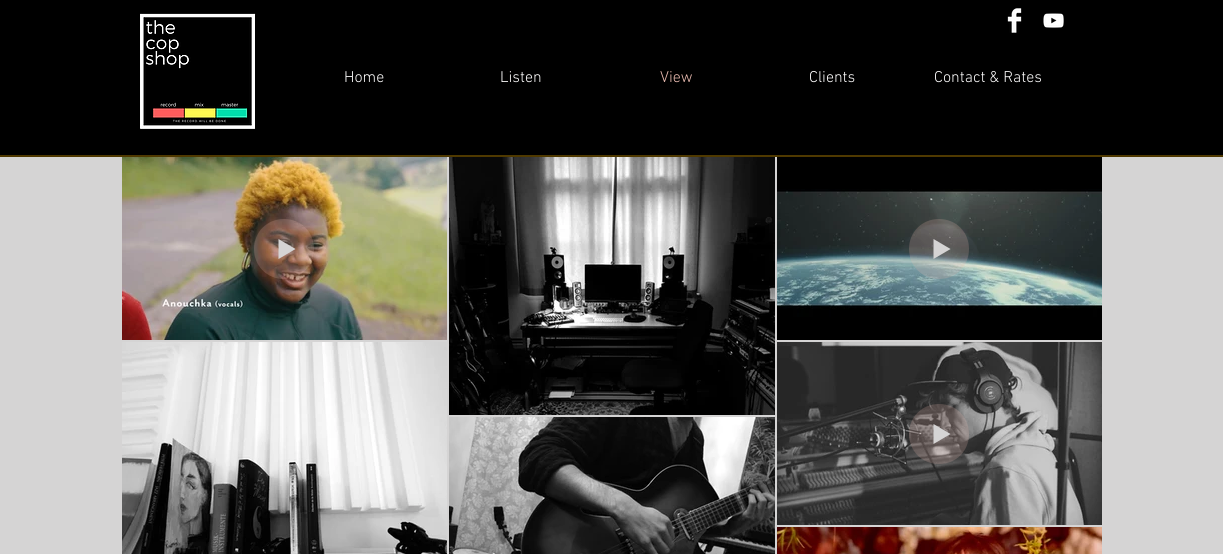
import math
import cairo

surface = cairo.ImageSurface(cairo.FORMAT_RGB24, 1223, 554)
ctx = cairo.Context(surface)
options = cairo.FontOptions()
options.set_hint_metrics(cairo.HINT_METRICS_OFF)
options.set_hint_style(cairo.HINT_STYLE_NONE)
ctx.set_font_options(options)
ctx.set_miter_limit(4)


def set_color(code):
    ctx.set_source_rgb(*(v / 255 for v in bytes.fromhex(code[-6:])))


def draw_text(x, y, s, family, size, color, bold=False, italic=False):
    ctx.select_font_face(family, cairo.FONT_SLANT_ITALIC if italic else cairo.FONT_SLANT_NORMAL, cairo.FONT_WEIGHT_BOLD if bold else cairo.FONT_WEIGHT_NORMAL)
    ctx.set_font_size(size)
    set_color(color)
    ctx.move_to(x, y)
    ctx.show_text(s)


def fill_rect(x, y, w, h, color):
    set_color(color)
    ctx.rectangle(x, y, w, h)
    ctx.fill()


def draw_image(path, x, y, w, h):
    ctx.save()
    ctx.set_source_surface(cairo.ImageSurface.create_from_png(path), x, y)
    ctx.rectangle(x, y, w, h)
    ctx.fill()
    ctx.restore()


set_color("#d5d4d4")
ctx.paint()
fill_rect(0, 0, 1223, 155, "#000000")
fill_rect(0, 155, 1223, 2, "#4f3900")
draw_image("assets/img1.png", 140, 13, 116, 116)
draw_image("assets/img2.png", 1007, 8, 15, 25)
draw_image("assets/img3.png", 1043, 13, 21, 15)
draw_text(344, 82, "Home", "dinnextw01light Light", 16, "#fefdfd")
draw_text(500, 82, "Listen", "dinnextw01light Light", 16, "#fefdfd")
draw_text(660, 82, "View", "dinnextw01light Light", 16, "#ebbcb1")
draw_text(809, 82, "Clients", "dinnextw01light Light", 16, "#fefdfd")
draw_text(934, 82, "Contact & Rates", "dinnextw01light Light", 16, "#fefdfd")
draw_image("assets/img4.png", 122, 157, 325, 183)
ctx.set_source_rgba(0.922, 0.737, 0.694, 0.21)
ctx.set_fill_rule(cairo.FILL_RULE_EVEN_ODD)
ctx.new_path()
ctx.move_to(284, 219)
ctx.curve_to(301, 219, 314, 232, 314, 249)
ctx.curve_to(314, 266, 301, 279, 284, 279)
ctx.curve_to(267, 279, 254, 266, 254, 249)
ctx.curve_to(254, 232, 267, 219, 284, 219)
ctx.close_path()
ctx.fill()
set_color("#d5d4d4")
ctx.set_fill_rule(cairo.FILL_RULE_WINDING)
ctx.new_path()
ctx.move_to(295.5, 249)
ctx.line_to(278.5, 259)
ctx.line_to(278.5, 239)
ctx.close_path()
ctx.fill()
draw_image("assets/img5.png", 449, 157, 326, 258)
draw_image("assets/img6.png", 777, 157, 325, 183)
ctx.set_source_rgba(0.922, 0.737, 0.694, 0.21)
ctx.set_fill_rule(cairo.FILL_RULE_EVEN_ODD)
ctx.new_path()
ctx.move_to(939, 219)
ctx.curve_to(956, 219, 969, 232, 969, 249)
ctx.curve_to(969, 266, 956, 279, 939, 279)
ctx.curve_to(922, 279, 909, 266, 909, 249)
ctx.curve_to(909, 232, 922, 219, 939, 219)
ctx.close_path()
ctx.fill()
set_color("#d5d4d4")
ctx.set_fill_rule(cairo.FILL_RULE_WINDING)
ctx.new_path()
ctx.move_to(950.5, 249)
ctx.line_to(933.5, 259)
ctx.line_to(933.5, 239)
ctx.close_path()
ctx.fill()
draw_image("assets/img7.png", 122, 342, 325, 212)
draw_image("assets/img8.png", 449, 417, 326, 137)
draw_image("assets/img9.png", 777, 342, 325, 183)
ctx.set_source_rgba(0.922, 0.737, 0.694, 0.21)
ctx.set_fill_rule(cairo.FILL_RULE_EVEN_ODD)
ctx.new_path()
ctx.move_to(939, 404)
ctx.curve_to(956, 404, 969, 417, 969, 434)
ctx.curve_to(969, 451, 956, 464, 939, 464)
ctx.curve_to(922, 464, 909, 451, 909, 434)
ctx.curve_to(909, 417, 922, 404, 939, 404)
ctx.close_path()
ctx.fill()
set_color("#d5d4d4")
ctx.set_fill_rule(cairo.FILL_RULE_WINDING)
ctx.new_path()
ctx.move_to(950.5, 434)
ctx.line_to(933.5, 444)
ctx.line_to(933.5, 424)
ctx.close_path()
ctx.fill()
draw_image("assets/img10.png", 777, 527, 325, 27)
surface.write_to_png("output.png")
